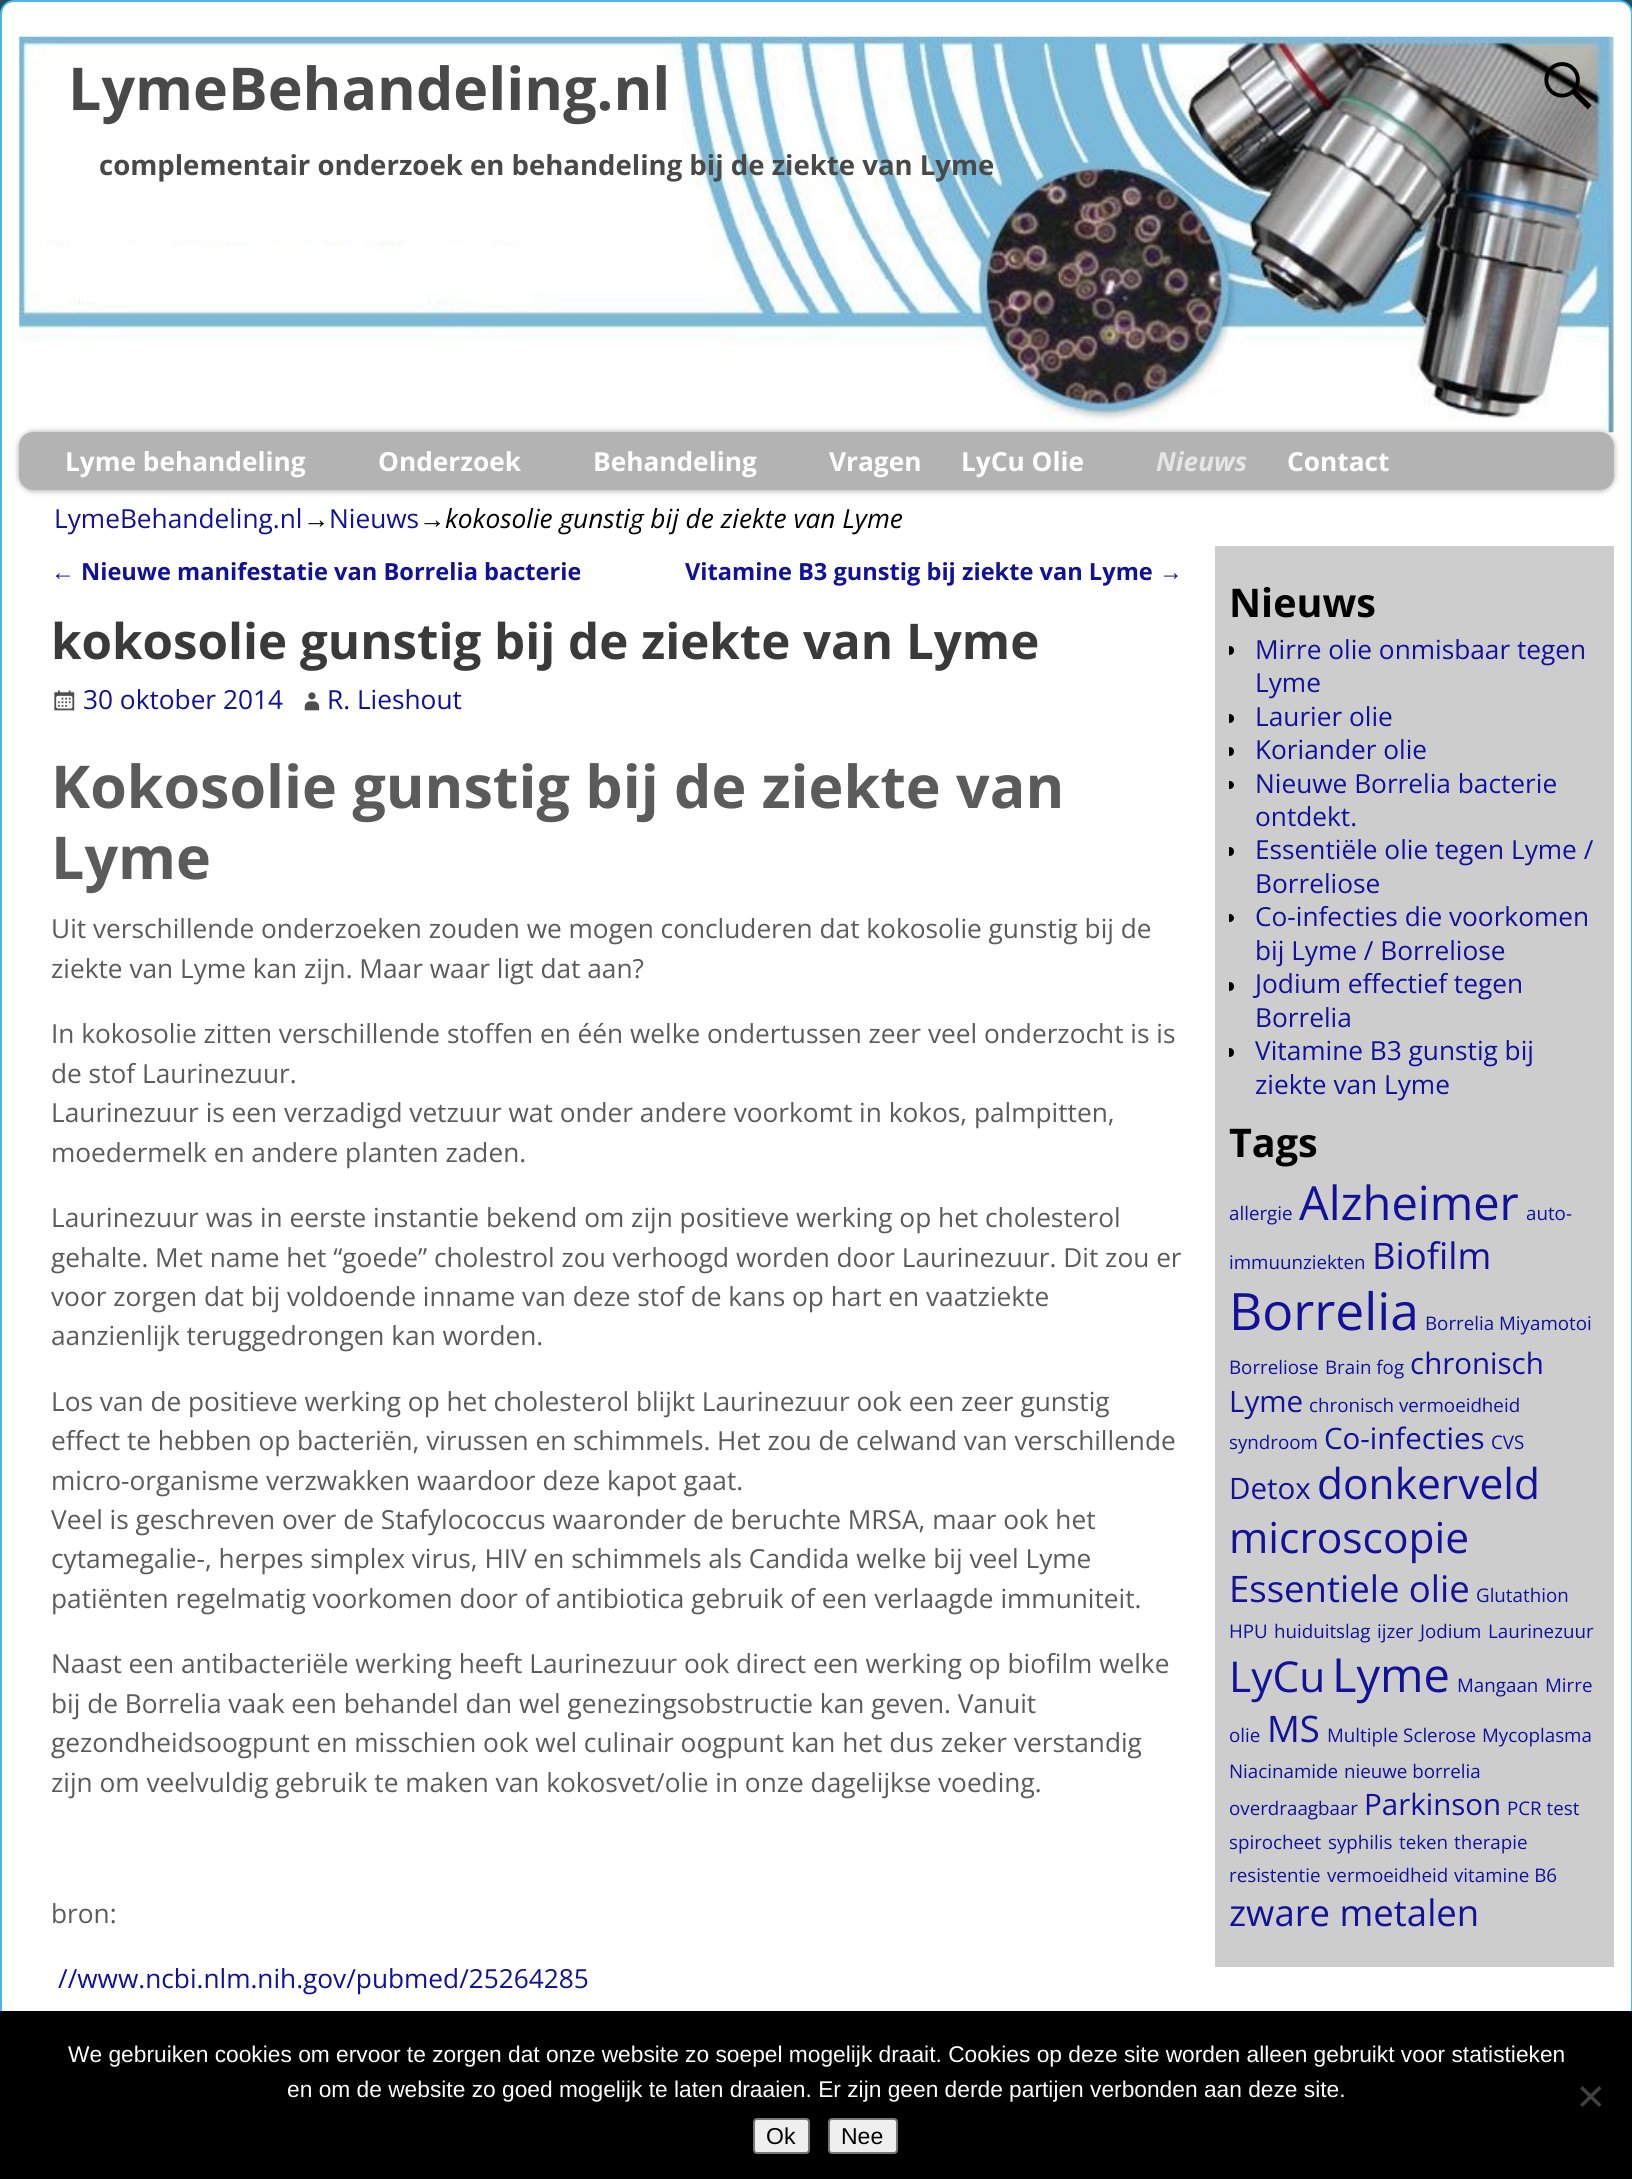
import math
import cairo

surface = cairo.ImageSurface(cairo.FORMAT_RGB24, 1632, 2179)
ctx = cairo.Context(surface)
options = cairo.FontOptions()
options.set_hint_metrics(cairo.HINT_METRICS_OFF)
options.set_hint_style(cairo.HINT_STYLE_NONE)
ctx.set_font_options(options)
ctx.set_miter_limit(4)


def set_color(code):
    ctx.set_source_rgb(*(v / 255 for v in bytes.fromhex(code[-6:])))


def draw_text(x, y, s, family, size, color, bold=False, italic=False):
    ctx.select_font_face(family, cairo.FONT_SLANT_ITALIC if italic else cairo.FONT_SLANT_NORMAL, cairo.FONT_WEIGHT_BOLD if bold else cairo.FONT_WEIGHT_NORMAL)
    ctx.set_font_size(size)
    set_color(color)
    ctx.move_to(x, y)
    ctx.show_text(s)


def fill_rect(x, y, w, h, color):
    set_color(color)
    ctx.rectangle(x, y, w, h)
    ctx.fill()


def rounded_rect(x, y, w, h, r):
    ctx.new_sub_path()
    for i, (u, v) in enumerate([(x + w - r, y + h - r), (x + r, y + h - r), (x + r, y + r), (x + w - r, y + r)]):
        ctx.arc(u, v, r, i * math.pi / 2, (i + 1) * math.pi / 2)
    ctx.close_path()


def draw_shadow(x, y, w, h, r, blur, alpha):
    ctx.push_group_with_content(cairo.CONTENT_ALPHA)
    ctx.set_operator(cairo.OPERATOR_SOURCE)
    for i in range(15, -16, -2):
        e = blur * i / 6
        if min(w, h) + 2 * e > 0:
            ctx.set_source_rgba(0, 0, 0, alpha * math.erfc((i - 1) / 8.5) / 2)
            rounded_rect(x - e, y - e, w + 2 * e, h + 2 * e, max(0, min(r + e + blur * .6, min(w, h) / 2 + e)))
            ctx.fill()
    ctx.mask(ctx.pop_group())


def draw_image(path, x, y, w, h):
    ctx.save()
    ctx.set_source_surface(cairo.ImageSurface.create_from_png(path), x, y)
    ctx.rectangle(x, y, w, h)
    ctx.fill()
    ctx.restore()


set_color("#5ecef0")
ctx.paint()
draw_image("assets/img1.png", 0, 0, 1632, 14)
set_color("#000000")
draw_shadow(-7, -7, 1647, 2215, 21, 2.5, 0.25)
set_color("#ffffff")
rounded_rect(1, 1, 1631, 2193, 13)
ctx.fill_preserve()
set_color("#49b6ed")
ctx.stroke()
draw_image("assets/img2.png", 19, 36, 1595, 397)
draw_text(68, 110, "LymeBehandeling.nl", "Open Sans", 59.1, "#494949", bold=True)
draw_image("assets/img3.png", 1544, 62, 48, 48)
draw_text(99, 175, "complementair onderzoek en behandeling bij de ziekte van Lyme", "Open Sans", 27.55, "#494949", bold=True)
ctx.save()
ctx.set_fill_rule(cairo.FILL_RULE_EVEN_ODD)
ctx.new_path()
ctx.move_to(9, 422)
ctx.line_to(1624, 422)
ctx.line_to(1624, 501)
ctx.line_to(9, 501)
ctx.close_path()
ctx.move_to(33, 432)
ctx.line_to(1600, 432)
ctx.curve_to(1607.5, 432, 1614, 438.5, 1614, 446)
ctx.line_to(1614, 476)
ctx.curve_to(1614, 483.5, 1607.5, 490, 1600, 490)
ctx.line_to(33, 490)
ctx.curve_to(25.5, 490, 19, 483.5, 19, 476)
ctx.line_to(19, 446)
ctx.curve_to(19, 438.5, 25.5, 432, 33, 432)
ctx.close_path()
ctx.clip()
set_color("#000000")
draw_shadow(18, 431, 1597, 61, 16, 2.5, 0.25)
ctx.restore()
ctx.set_source_rgba(0, 0, 0, 0.3)
rounded_rect(19, 432, 1595, 58, 14)
ctx.fill()
draw_text(65, 471, "Lyme behandeling", "Open Sans", 26.25, "#ffffff", bold=True)
draw_text(378, 471, "Onderzoek", "Open Sans", 26.25, "#ffffff", bold=True)
draw_text(593, 471, "Behandeling", "Open Sans", 26.25, "#ffffff", bold=True)
draw_text(829, 471, "Vragen", "Open Sans", 26.25, "#ffffff", bold=True)
draw_text(961, 471, "LyCu Olie", "Open Sans", 26.25, "#ffffff", bold=True)
draw_text(1156, 471, "Nieuws", "Open Sans", 26.25, "#e6e6e6", bold=True, italic=True)
draw_text(1287, 471, "Contact", "Open Sans", 26.25, "#ffffff", bold=True)
draw_text(54, 528, "LymeBehandeling.nl", "Open Sans", 26.25, "#111199")
draw_text(303, 528, "→", "Liberation Sans", 26.25, "#000000")
draw_text(329, 528, "Nieuws", "Open Sans", 26.25, "#111199")
draw_text(419, 528, "→", "Liberation Sans", 26.25, "#000000")
draw_text(445, 528, "kokosolie gunstig bij de ziekte van Lyme", "Open Sans", 26.25, "#000000", italic=True)
draw_text(51, 580, "←", "Liberation Sans", 23.6, "#111199")
draw_text(81, 580, "Nieuwe manifestatie van Borrelia bacterie", "Open Sans", 23.6, "#111199", bold=True)
draw_text(685, 580, "Vitamine B3 gunstig bij ziekte van Lyme", "Open Sans", 23.6, "#111199", bold=True)
draw_text(1159, 580, "→", "Liberation Sans", 23.6, "#111199")
draw_text(51, 659, "kokosolie gunstig bij de ziekte van Lyme", "Open Sans", 49.25, "#3a3a3a", bold=True)
draw_image("assets/img4.png", 54, 690, 21, 21)
draw_text(83, 709, "30 oktober 2014", "Open Sans", 26.25, "#111199")
draw_image("assets/img5.png", 304, 692, 16, 19)
draw_text(327, 709, "R. Lieshout", "Open Sans", 26.25, "#111199")
draw_text(51, 808, "Kokosolie gunstig bij de ziekte van", "Open Sans", 59.1, "#5b5b5b", bold=True)
draw_text(51, 879, "Lyme", "Open Sans", 59.1, "#5b5b5b", bold=True)
draw_text(51, 938, "Uit verschillende onderzoeken zouden we mogen concluderen dat kokosolie gunstig bij de", "Open Sans", 26.25, "#5b5b5b")
draw_text(51, 978, "ziekte van Lyme kan zijn. Maar waar ligt dat aan?", "Open Sans", 26.25, "#5b5b5b")
draw_text(51, 1043, "In kokosolie zitten verschillende stoffen en één welke ondertussen zeer veel onderzocht is is", "Open Sans", 26.25, "#5b5b5b")
draw_text(51, 1083, "de stof Laurinezuur.", "Open Sans", 26.25, "#5b5b5b")
draw_text(51, 1122, "Laurinezuur is een verzadigd vetzuur wat onder andere voorkomt in kokos, palmpitten,", "Open Sans", 26.25, "#5b5b5b")
draw_text(51, 1162, "moedermelk en andere planten zaden.", "Open Sans", 26.25, "#5b5b5b")
draw_text(51, 1227, "Laurinezuur was in eerste instantie bekend om zijn positieve werking op het cholesterol", "Open Sans", 26.25, "#5b5b5b")
draw_text(51, 1267, "gehalte. Met name het “goede” cholestrol zou verhoogd worden door Laurinezuur. Dit zou er", "Open Sans", 26.25, "#5b5b5b")
draw_text(51, 1306, "voor zorgen dat bij voldoende inname van deze stof de kans op hart en vaatziekte", "Open Sans", 26.25, "#5b5b5b")
draw_text(51, 1345, "aanzienlijk teruggedrongen kan worden.", "Open Sans", 26.25, "#5b5b5b")
draw_text(51, 1411, "Los van de positieve werking op het cholesterol blijkt Laurinezuur ook een zeer gunstig", "Open Sans", 26.25, "#5b5b5b")
draw_text(51, 1450, "effect te hebben op bacteriën, virussen en schimmels. Het zou de celwand van verschillende", "Open Sans", 26.25, "#5b5b5b")
draw_text(51, 1490, "micro-organisme verzwakken waardoor deze kapot gaat.", "Open Sans", 26.25, "#5b5b5b")
draw_text(51, 1529, "Veel is geschreven over de Stafylococcus waaronder de beruchte MRSA, maar ook het", "Open Sans", 26.25, "#5b5b5b")
draw_text(51, 1568, "cytamegalie-, herpes simplex virus, HIV en schimmels als Candida welke bij veel Lyme", "Open Sans", 26.25, "#5b5b5b")
draw_text(51, 1608, "patiënten regelmatig voorkomen door of antibiotica gebruik of een verlaagde immuniteit.", "Open Sans", 26.25, "#5b5b5b")
draw_text(51, 1673, "Naast een antibacteriële werking heeft Laurinezuur ook direct een werking op biofilm welke", "Open Sans", 26.25, "#5b5b5b")
draw_text(51, 1713, "bij de Borrelia vaak een behandel dan wel genezingsobstructie kan geven. Vanuit", "Open Sans", 26.25, "#5b5b5b")
draw_text(51, 1752, "gezondheidsoogpunt en misschien ook wel culinair oogpunt kan het dus zeker verstandig", "Open Sans", 26.25, "#5b5b5b")
draw_text(51, 1792, "zijn om veelvuldig gebruik te maken van kokosvet/olie in onze dagelijkse voeding.", "Open Sans", 26.25, "#5b5b5b")
draw_text(51, 1923, "bron:", "Open Sans", 26.25, "#5b5b5b")
draw_text(58, 1988, "//www.ncbi.nlm.nih.gov/pubmed/25264285", "Open Sans", 26.25, "#111199")
fill_rect(1215, 546, 399, 1421, "#cdcdcd")
draw_text(1229, 617, "Nieuws", "Open Sans", 39.5, "#000000", bold=True)
ctx.save()
ctx.rectangle(1229, 578, 371, 523)
ctx.clip()
ctx.arc(1229.5, 650.5, 4.5, 0, 2 * math.pi)
ctx.fill()
ctx.restore()
draw_text(1255, 659, "Mirre olie onmisbaar tegen", "Open Sans", 26.25, "#111199")
draw_text(1255, 692, "Lyme", "Open Sans", 26.25, "#111199")
ctx.save()
ctx.rectangle(1229, 578, 371, 523)
ctx.clip()
set_color("#000000")
ctx.arc(1229.5, 718.5, 4.5, 0, 2 * math.pi)
ctx.fill()
ctx.restore()
draw_text(1255, 726, "Laurier olie", "Open Sans", 26.25, "#111199")
ctx.save()
ctx.rectangle(1229, 578, 371, 523)
ctx.clip()
set_color("#000000")
ctx.arc(1229.5, 751.5, 4.5, 0, 2 * math.pi)
ctx.fill()
ctx.restore()
draw_text(1255, 759, "Koriander olie", "Open Sans", 26.25, "#111199")
set_color("#000000")
ctx.new_path()
ctx.move_to(1229, 781)
ctx.line_to(1230, 781)
ctx.curve_to(1232, 781, 1234, 783, 1234, 785)
ctx.curve_to(1234, 787, 1232, 789, 1230, 789)
ctx.line_to(1229, 789)
ctx.close_path()
ctx.fill()
draw_text(1255, 793, "Nieuwe Borrelia bacterie", "Open Sans", 26.25, "#111199")
draw_text(1255, 826, "ontdekt.", "Open Sans", 26.25, "#111199")
ctx.save()
ctx.rectangle(1229, 578, 371, 523)
ctx.clip()
set_color("#000000")
ctx.arc(1229.5, 851.5, 4.5, 0, 2 * math.pi)
ctx.fill()
ctx.restore()
draw_text(1255, 859, "Essentiële olie tegen Lyme /", "Open Sans", 26.25, "#111199")
draw_text(1255, 893, "Borreliose", "Open Sans", 26.25, "#111199")
set_color("#000000")
ctx.new_path()
ctx.move_to(1229, 914)
ctx.line_to(1230, 914)
ctx.curve_to(1232, 914, 1234, 916, 1234, 918)
ctx.curve_to(1234, 920, 1232, 922, 1230, 922)
ctx.line_to(1229, 922)
ctx.close_path()
ctx.fill()
draw_text(1255, 926, "Co-infecties die voorkomen", "Open Sans", 26.25, "#111199")
draw_text(1255, 960, "bij Lyme / Borreliose", "Open Sans", 26.25, "#111199")
ctx.save()
ctx.rectangle(1229, 578, 371, 523)
ctx.clip()
set_color("#000000")
ctx.arc(1229.5, 986.5, 4.5, 0, 2 * math.pi)
ctx.fill()
ctx.restore()
draw_text(1255, 993, "Jodium effectief tegen", "Open Sans", 26.25, "#111199")
draw_text(1255, 1027, "Borrelia", "Open Sans", 26.25, "#111199")
ctx.save()
ctx.rectangle(1229, 578, 371, 523)
ctx.clip()
set_color("#000000")
ctx.arc(1229.5, 1052.5, 4.5, 0, 2 * math.pi)
ctx.fill()
ctx.restore()
draw_text(1255, 1060, "Vitamine B3 gunstig bij", "Open Sans", 26.25, "#111199")
draw_text(1255, 1094, "ziekte van Lyme", "Open Sans", 26.25, "#111199")
draw_text(1229, 1157, "Tags", "Open Sans", 39.5, "#000000", bold=True)
draw_text(1229, 1220, "allergie", "Open Sans", 18.75, "#111199")
draw_text(1299, 1220, "Alzheimer", "Open Sans", 47, "#111199")
draw_text(1526, 1220, "auto-", "Open Sans", 18.75, "#111199")
draw_text(1229, 1269, "immuunziekten", "Open Sans", 18.75, "#111199")
draw_text(1372, 1269, "Biofilm", "Open Sans", 36.5, "#111199")
draw_text(1229, 1330, "Borrelia", "Open Sans", 51.5, "#111199")
draw_text(1425, 1330, "Borrelia Miyamotoi", "Open Sans", 18.75, "#111199")
draw_text(1229, 1374, "Borreliose", "Open Sans", 18.75, "#111199")
draw_text(1325, 1374, "Brain fog", "Open Sans", 18.75, "#111199")
draw_text(1410, 1374, "chronisch", "Open Sans", 29.5, "#111199")
draw_text(1229, 1412, "Lyme", "Open Sans", 29.5, "#111199")
draw_text(1309, 1412, "chronisch vermoeidheid", "Open Sans", 18.75, "#111199")
draw_text(1229, 1449, "syndroom", "Open Sans", 18.75, "#111199")
draw_text(1324, 1449, "Co-infecties", "Open Sans", 29.5, "#111199")
draw_text(1491, 1449, "CVS", "Open Sans", 18.75, "#111199")
draw_text(1229, 1499, "Detox", "Open Sans", 29.5, "#111199")
draw_text(1317, 1499, "donkerveld", "Open Sans", 42.5, "#111199")
draw_text(1229, 1553, "microscopie", "Open Sans", 42.5, "#111199")
draw_text(1229, 1602, "Essentiele olie", "Open Sans", 36.5, "#111199")
draw_text(1476, 1602, "Glutathion", "Open Sans", 18.75, "#111199")
draw_text(1229, 1638, "HPU", "Open Sans", 18.75, "#111199")
draw_text(1274, 1638, "huiduitslag", "Open Sans", 18.75, "#111199")
draw_text(1377, 1638, "ijzer", "Open Sans", 18.75, "#111199")
draw_text(1420, 1638, "Jodium", "Open Sans", 18.75, "#111199")
draw_text(1488, 1638, "Laurinezuur", "Open Sans", 18.75, "#111199")
draw_text(1229, 1692, "LyCu", "Open Sans", 42.5, "#111199")
draw_text(1332, 1692, "Lyme", "Open Sans", 47, "#111199")
draw_text(1457, 1692, "Mangaan", "Open Sans", 18.75, "#111199")
draw_text(1545, 1692, "Mirre", "Open Sans", 18.75, "#111199")
draw_text(1229, 1742, "olie", "Open Sans", 18.75, "#111199")
draw_text(1267, 1742, "MS", "Open Sans", 36.5, "#111199")
draw_text(1327, 1742, "Multiple Sclerose", "Open Sans", 18.75, "#111199")
draw_text(1482, 1742, "Mycoplasma", "Open Sans", 18.75, "#111199")
draw_text(1229, 1778, "Niacinamide", "Open Sans", 18.75, "#111199")
draw_text(1344, 1778, "nieuwe borrelia", "Open Sans", 18.75, "#111199")
draw_text(1229, 1815, "overdraagbaar", "Open Sans", 18.75, "#111199")
draw_text(1364, 1815, "Parkinson", "Open Sans", 29.5, "#111199")
draw_text(1507, 1815, "PCR test", "Open Sans", 18.75, "#111199")
draw_text(1229, 1849, "spirocheet", "Open Sans", 18.75, "#111199")
draw_text(1328, 1849, "syphilis", "Open Sans", 18.75, "#111199")
draw_text(1399, 1849, "teken", "Open Sans", 18.75, "#111199")
draw_text(1454, 1849, "therapie", "Open Sans", 18.75, "#111199")
draw_text(1229, 1882, "resistentie", "Open Sans", 18.75, "#111199")
draw_text(1327, 1882, "vermoeidheid", "Open Sans", 18.75, "#111199")
draw_text(1454, 1882, "vitamine B6", "Open Sans", 18.75, "#111199")
draw_text(1229, 1926, "zware metalen", "Open Sans", 36.5, "#111199")
fill_rect(0, 2011, 1632, 168, "#000000")
draw_text(68, 2062, "We gebruiken cookies om ervoor te zorgen dat onze website zo soepel mogelijk draait. Cookies op deze site worden alleen gebruikt voor statistieken", "Liberation Sans", 22.75, "#ffffff")
draw_text(287, 2097, "en om de website zo goed mogelijk te laten draaien. Er zijn geen derde partijen verbonden aan deze site.", "Liberation Sans", 22.75, "#ffffff")
set_color("#404040")
ctx.new_path()
ctx.move_to(1599, 2086)
ctx.line_to(1601.5, 2088.5)
ctx.line_to(1582.5, 2107)
ctx.line_to(1580, 2104.5)
ctx.close_path()
ctx.fill()
ctx.new_path()
ctx.move_to(1580, 2088.5)
ctx.line_to(1582.5, 2086)
ctx.line_to(1601.5, 2104.5)
ctx.line_to(1599, 2107)
ctx.close_path()
ctx.fill()
set_color("#efefef")
rounded_rect(754, 2119, 55, 34, 3)
ctx.fill_preserve()
set_color("#767676")
ctx.stroke()
draw_text(766, 2144, "Ok", "Liberation Sans", 23, "#000000")
set_color("#efefef")
rounded_rect(829, 2119, 68, 34, 3)
ctx.fill_preserve()
set_color("#767676")
ctx.stroke()
draw_text(841, 2144, "Nee", "Liberation Sans", 23, "#000000")
surface.write_to_png("output.png")
